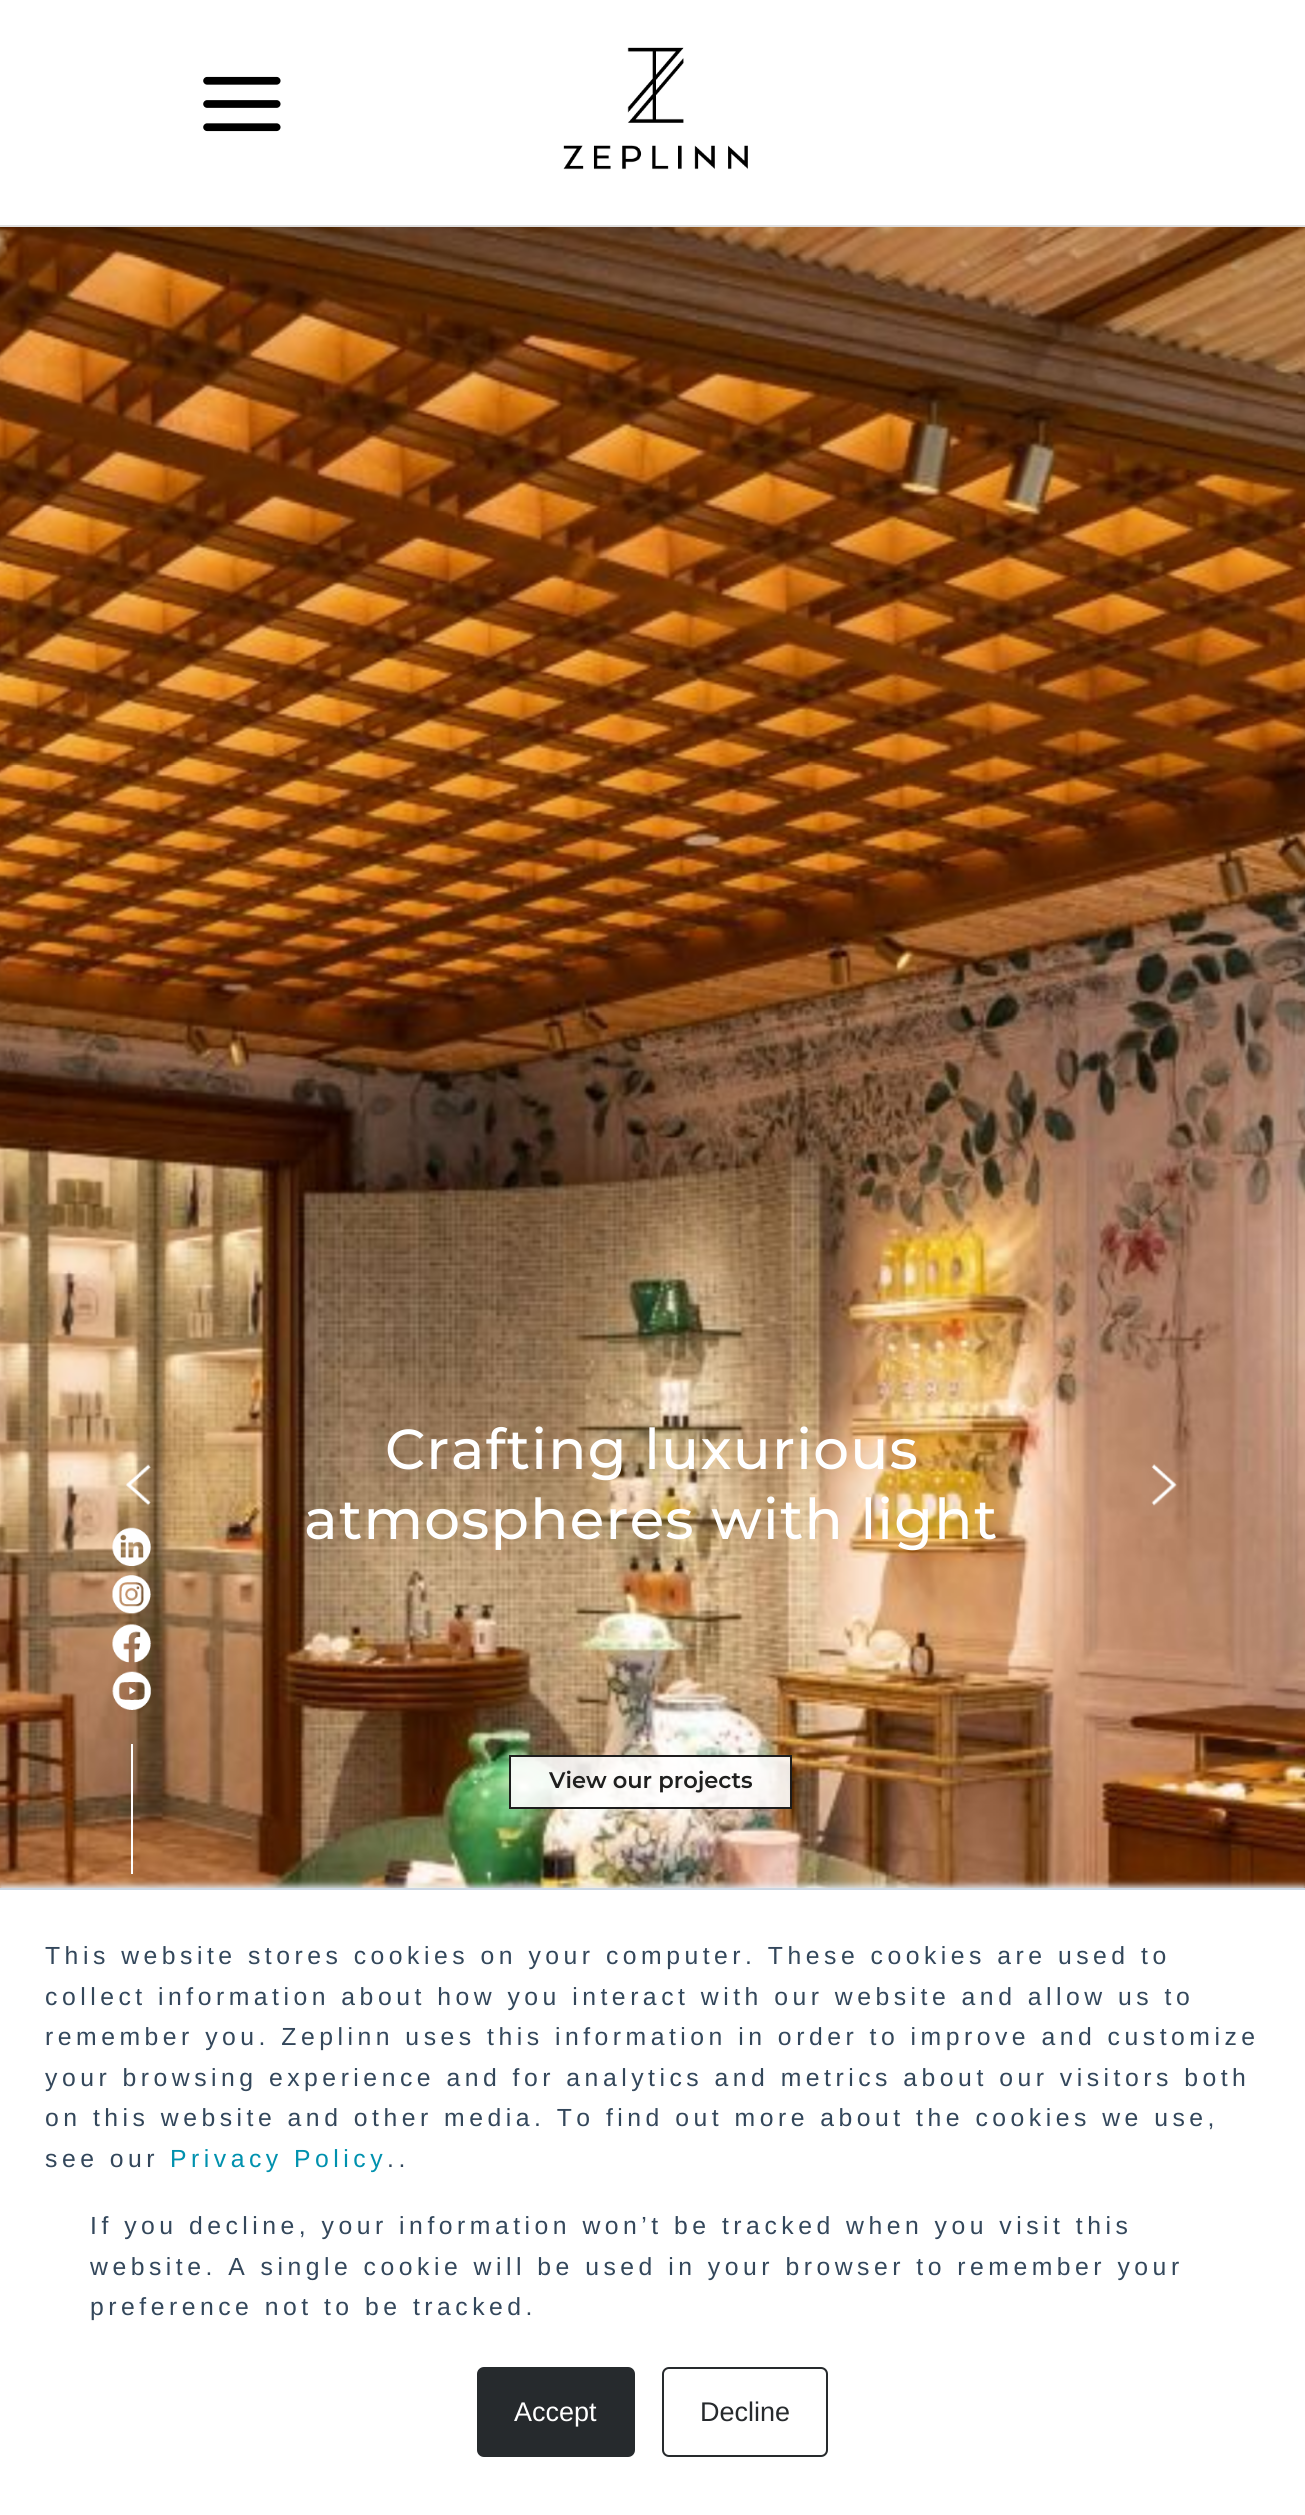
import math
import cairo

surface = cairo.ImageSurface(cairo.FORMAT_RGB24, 1305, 2515)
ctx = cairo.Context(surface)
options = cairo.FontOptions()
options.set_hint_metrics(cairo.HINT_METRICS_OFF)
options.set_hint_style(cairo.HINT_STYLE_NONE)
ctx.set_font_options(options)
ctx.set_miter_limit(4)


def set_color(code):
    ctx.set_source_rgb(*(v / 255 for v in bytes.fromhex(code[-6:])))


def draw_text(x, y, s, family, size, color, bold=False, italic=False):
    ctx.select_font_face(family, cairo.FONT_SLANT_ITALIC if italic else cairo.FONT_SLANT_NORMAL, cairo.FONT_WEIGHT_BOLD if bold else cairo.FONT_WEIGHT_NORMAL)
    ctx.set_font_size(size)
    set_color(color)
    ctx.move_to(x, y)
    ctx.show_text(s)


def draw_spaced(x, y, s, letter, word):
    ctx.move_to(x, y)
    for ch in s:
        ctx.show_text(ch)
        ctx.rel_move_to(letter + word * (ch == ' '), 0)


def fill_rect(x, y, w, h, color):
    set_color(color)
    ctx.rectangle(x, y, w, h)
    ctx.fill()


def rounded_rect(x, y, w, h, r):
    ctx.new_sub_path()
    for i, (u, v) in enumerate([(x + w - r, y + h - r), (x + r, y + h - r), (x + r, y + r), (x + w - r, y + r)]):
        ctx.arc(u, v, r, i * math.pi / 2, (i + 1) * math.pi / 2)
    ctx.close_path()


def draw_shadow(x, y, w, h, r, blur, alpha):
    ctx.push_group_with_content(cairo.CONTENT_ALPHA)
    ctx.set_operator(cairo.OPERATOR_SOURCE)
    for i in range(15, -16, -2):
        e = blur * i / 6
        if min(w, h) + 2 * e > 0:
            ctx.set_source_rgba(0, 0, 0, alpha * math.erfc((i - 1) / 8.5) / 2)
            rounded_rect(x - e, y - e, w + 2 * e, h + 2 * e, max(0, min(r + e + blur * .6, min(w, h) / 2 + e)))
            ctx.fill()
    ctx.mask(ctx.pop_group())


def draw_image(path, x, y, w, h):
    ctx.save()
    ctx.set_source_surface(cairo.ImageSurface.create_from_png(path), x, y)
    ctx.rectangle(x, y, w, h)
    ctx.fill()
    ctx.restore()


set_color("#ffffff")
ctx.paint()
fill_rect(0, 225, 1305, 2, "#e0e0e0")
draw_image("assets/img1.png", 203, 76, 78, 56)
draw_image("assets/img2.png", 563, 47, 185, 123)
draw_image("assets/img7.png", 0, 227, 1305, 1661)
draw_image("assets/img3.png", 112, 1527, 39, 39)
draw_image("assets/img4.png", 112, 1575, 39, 39)
draw_image("assets/img5.png", 112, 1624, 39, 39)
draw_image("assets/img6.png", 112, 1671, 39, 39)
fill_rect(131, 1744, 2, 130, "#ffffff")
draw_image("assets/img8.png", 126, 1464, 25, 42)
ctx.select_font_face("Montserrat Medium")
ctx.set_font_size(56.25)
draw_spaced(385, 1469, "Crafting luxurious", 1.25, 0)
draw_spaced(304, 1539, "atmospheres with light", 1.25, 0)
draw_image("assets/img9.png", 1151, 1464, 26, 42)
ctx.set_source_rgba(1, 1, 1, 0.88)
ctx.rectangle(509, 1755, 283, 54)
ctx.fill()
ctx.rectangle(510, 1756, 281, 52)
ctx.set_source_rgba(0, 0, 0, 0.88)
ctx.stroke()
draw_text(549, 1788, "View our projects", "Montserrat SemiBold", 22.5, "#1f1f1e")
set_color("#eaf0f6")
draw_shadow(0, 1886, 1305, 627, 0, 3.5, 1)
fill_rect(0, 1890, 1305, 625, "#ffffff")
fill_rect(0, 1888, 1305, 2, "#cbd6e2")
ctx.select_font_face("Liberation Sans")
ctx.set_font_size(24.75)
set_color("#33475b")
draw_spaced(45, 1964, "This website stores cookies on your computer. These cookies are used to", 4.5, 0)
draw_spaced(45, 2005, "collect information about how you interact with our website and allow us to", 4.5, 0)
draw_spaced(45, 2045, "remember you. Zeplinn uses this information in order to improve and customize", 4.5, 0)
draw_spaced(45, 2086, "your browsing experience and for analytics and metrics about our visitors both", 4.5, 0)
draw_spaced(45, 2126, "on this website and other media. To find out more about the cookies we use,", 4.5, 0)
draw_spaced(45, 2167, "see our", 4.5, 0)
set_color("#0091ae")
draw_spaced(170, 2167, "Privacy Policy", 4.5, 0)
set_color("#33475b")
draw_spaced(387, 2167, "..", 4.5, 0)
draw_spaced(90, 2234, "If you decline, your information won’t be tracked when you visit this", 4.5, 0)
draw_spaced(90, 2275, "website. A single cookie will be used in your browser to remember your", 4.5, 0)
draw_spaced(90, 2315, "preference not to be tracked.", 4.5, 0)
set_color("#262a2d")
rounded_rect(478, 2368, 156, 88, 6)
ctx.fill_preserve()
ctx.stroke()
draw_text(514, 2421, "Accept", "Liberation Sans", 27, "#ffffff")
rounded_rect(663, 2368, 164, 88, 6)
set_color("#262a2d")
ctx.stroke()
draw_text(700, 2421, "Decline", "Liberation Sans", 27, "#262a2d")
surface.write_to_png("output.png")
